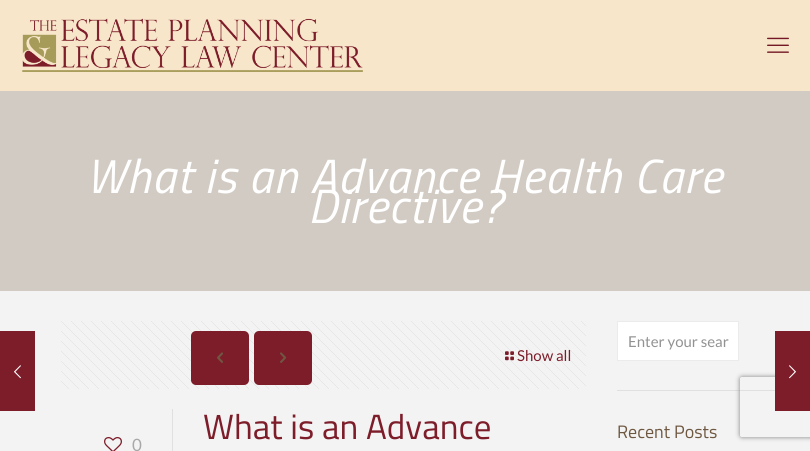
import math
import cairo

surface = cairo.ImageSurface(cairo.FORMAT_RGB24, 810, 451)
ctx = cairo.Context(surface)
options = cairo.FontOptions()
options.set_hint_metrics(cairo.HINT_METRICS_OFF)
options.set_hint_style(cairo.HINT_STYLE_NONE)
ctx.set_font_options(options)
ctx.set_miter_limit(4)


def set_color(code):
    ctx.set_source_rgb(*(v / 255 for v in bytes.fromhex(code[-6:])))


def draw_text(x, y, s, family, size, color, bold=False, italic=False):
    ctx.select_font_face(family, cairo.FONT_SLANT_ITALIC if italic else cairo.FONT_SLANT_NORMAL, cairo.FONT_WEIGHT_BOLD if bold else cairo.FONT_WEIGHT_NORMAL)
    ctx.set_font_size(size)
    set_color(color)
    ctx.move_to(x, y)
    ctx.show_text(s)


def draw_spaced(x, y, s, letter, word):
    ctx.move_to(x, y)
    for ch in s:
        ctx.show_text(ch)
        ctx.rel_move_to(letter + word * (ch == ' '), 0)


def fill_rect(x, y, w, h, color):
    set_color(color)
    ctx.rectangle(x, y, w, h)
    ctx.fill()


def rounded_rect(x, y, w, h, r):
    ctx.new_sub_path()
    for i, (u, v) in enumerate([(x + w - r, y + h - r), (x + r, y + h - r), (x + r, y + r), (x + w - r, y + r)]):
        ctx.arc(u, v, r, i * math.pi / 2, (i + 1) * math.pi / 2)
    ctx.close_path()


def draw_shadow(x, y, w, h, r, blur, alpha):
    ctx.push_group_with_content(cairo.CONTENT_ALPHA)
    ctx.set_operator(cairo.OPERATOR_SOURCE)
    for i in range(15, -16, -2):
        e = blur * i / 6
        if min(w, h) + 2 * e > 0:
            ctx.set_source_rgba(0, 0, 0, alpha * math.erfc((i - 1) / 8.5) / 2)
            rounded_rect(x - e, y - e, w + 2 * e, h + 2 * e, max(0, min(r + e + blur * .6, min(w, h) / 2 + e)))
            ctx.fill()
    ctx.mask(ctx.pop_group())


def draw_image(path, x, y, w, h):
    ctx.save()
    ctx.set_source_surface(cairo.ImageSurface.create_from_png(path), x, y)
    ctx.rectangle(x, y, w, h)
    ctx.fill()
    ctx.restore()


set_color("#f3f3f3")
ctx.paint()
fill_rect(0, 331, 35, 80, "#7d1d2a")
draw_image("assets/img1.png", 14, 365, 7, 14)
fill_rect(0, 0, 810, 91, "#f7e6ca")
draw_image("assets/img2.png", 22, 18, 341, 54)
draw_image("assets/img3.png", 767, 37, 22, 16)
fill_rect(0, 91, 810, 200, "#d2cbc3")
ctx.select_font_face("Titillium Web", cairo.FONT_SLANT_ITALIC)
ctx.set_font_size(48)
set_color("#ffffff")
draw_spaced(86, 193, "What is an Advance Health Care", 1, 0)
draw_spaced(308, 223, "Directive?", 1, 0)
draw_image("assets/img4.png", 61, 321, 525, 68)
set_color("#7d1d2a")
rounded_rect(191, 331, 58, 54, 5)
ctx.fill()
draw_image("assets/img5.png", 217, 352, 6, 11)
rounded_rect(254, 331, 58, 54, 5)
ctx.fill()
draw_image("assets/img6.png", 280, 352, 6, 11)
draw_image("assets/img7.png", 505, 351, 9, 10)
draw_text(517, 361, "Show all", "Lato", 15, "#7d1d2a")
fill_rect(172, 409, 1, 42, "#e0e0e0")
draw_text(203, 439, "What is an Advance", "Titillium Web", 35, "#7d1d2a")
draw_image("assets/img8.png", 104, 437, 18, 14)
draw_text(132, 451, "0", "Lato", 17, "#a8a8a8")
set_color("#ffffff")
ctx.rectangle(617.5, 321.5, 121, 39)
ctx.fill_preserve()
set_color("#ebebeb")
ctx.set_line_width(1)
ctx.stroke()
draw_text(628, 347, "Enter your sear", "Lato", 15, "#929292")
fill_rect(617, 390, 158, 1, "#e0e0e0")
draw_text(617, 438, "Recent Posts", "Titillium Web", 18, "#6f5841")
ctx.save()
ctx.set_fill_rule(cairo.FILL_RULE_EVEN_ODD)
ctx.new_path()
ctx.move_to(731, 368)
ctx.line_to(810, 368)
ctx.line_to(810, 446)
ctx.line_to(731, 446)
ctx.close_path()
ctx.move_to(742, 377)
ctx.line_to(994, 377)
ctx.curve_to(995, 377, 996, 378, 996, 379)
ctx.line_to(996, 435)
ctx.curve_to(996, 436, 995, 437, 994, 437)
ctx.line_to(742, 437)
ctx.curve_to(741, 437, 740, 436, 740, 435)
ctx.line_to(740, 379)
ctx.curve_to(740, 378, 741, 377, 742, 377)
ctx.close_path()
ctx.clip()
set_color("#808080")
draw_shadow(740, 377, 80, 60, 2, 2.5, 1)
ctx.restore()
fill_rect(775, 331, 35, 80, "#7d1d2a")
draw_image("assets/img9.png", 789, 365, 7, 14)
surface.write_to_png("output.png")
